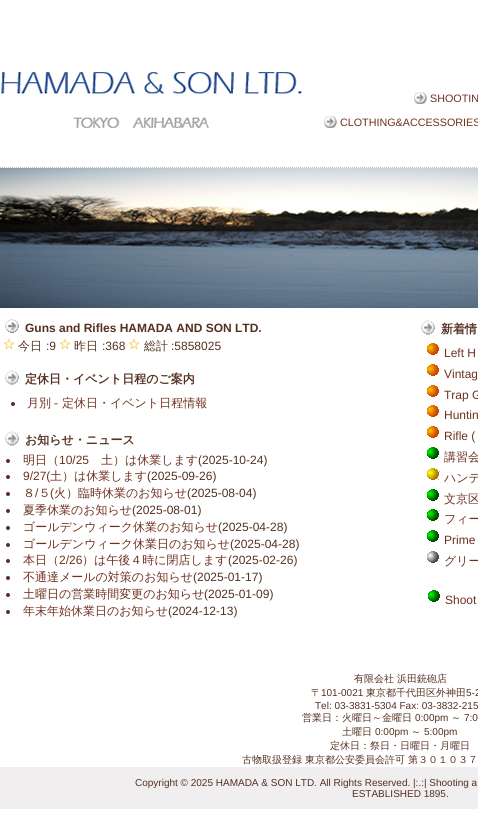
import math
import cairo

surface = cairo.ImageSurface(cairo.FORMAT_RGB24, 478, 827)
ctx = cairo.Context(surface)
options = cairo.FontOptions()
options.set_hint_metrics(cairo.HINT_METRICS_OFF)
options.set_hint_style(cairo.HINT_STYLE_NONE)
ctx.set_font_options(options)
ctx.set_miter_limit(4)


def set_color(code):
    ctx.set_source_rgb(*(v / 255 for v in bytes.fromhex(code[-6:])))


def draw_text(x, y, s, family, size, color, bold=False, italic=False):
    ctx.select_font_face(family, cairo.FONT_SLANT_ITALIC if italic else cairo.FONT_SLANT_NORMAL, cairo.FONT_WEIGHT_BOLD if bold else cairo.FONT_WEIGHT_NORMAL)
    ctx.set_font_size(size)
    set_color(color)
    ctx.move_to(x, y)
    ctx.show_text(s)


def fill_rect(x, y, w, h, color):
    set_color(color)
    ctx.rectangle(x, y, w, h)
    ctx.fill()


def draw_image(path, x, y, w, h):
    ctx.save()
    ctx.set_source_surface(cairo.ImageSurface.create_from_png(path), x, y)
    ctx.rectangle(x, y, w, h)
    ctx.fill()
    ctx.restore()


set_color("#ffffff")
ctx.paint()
draw_image("assets/img1.png", 0, 167, 477, 1)
draw_image("assets/img2.png", 1, 72, 301, 56)
draw_image("assets/img3.png", 414, 92, 13, 12)
draw_text(430, 102, "SHOOTIN", "Liberation Sans", 10.75, "#703020")
draw_image("assets/img3.png", 324, 116, 13, 12)
draw_text(340, 126, "CLOTHING&ACCESSORIES", "Liberation Sans", 10.75, "#703020")
draw_image("assets/img4.png", 0, 168, 478, 140)
draw_image("assets/img5.png", 5, 319, 14, 14)
draw_text(25, 332, "Guns and Rifles HAMADA AND SON LTD.", "Liberation Sans", 12, "#543020", bold=True)
draw_image("assets/img6.png", 3, 338, 12, 12)
draw_text(18, 350, "今日", "WenQuanYi Zen Hei Medium", 12, "#543020")
draw_text(46, 350, ":9", "Liberation Sans", 12, "#543020")
draw_image("assets/img7.png", 59, 338, 12, 12)
draw_text(74, 350, "昨日", "WenQuanYi Zen Hei Medium", 12, "#543020")
draw_text(102, 350, ":368", "Liberation Sans", 12, "#543020")
draw_image("assets/img6.png", 128, 338, 12, 12)
draw_text(144, 350, "総計", "WenQuanYi Zen Hei Medium", 12, "#543020")
draw_text(171, 350, ":5858025", "Liberation Sans", 12, "#543020")
draw_image("assets/img8.png", 5, 370, 14, 15)
draw_text(25, 383, "定休日・イベント日程のご案内", "WenQuanYi Zen Hei", 12, "#543020", bold=True)
ctx.new_path()
ctx.arc(13, 404, 2, 0, 2 * math.pi)
ctx.fill()
draw_text(27, 407, "月別", "WenQuanYi Zen Hei Medium", 12, "#703020")
draw_text(54, 407, "-", "Liberation Sans", 12, "#703020")
draw_text(62, 407, "定休日・イベント日程情報", "WenQuanYi Zen Hei Medium", 12, "#703020")
draw_image("assets/img8.png", 421, 320, 14, 15)
draw_text(441, 333, "新着情", "WenQuanYi Zen Hei", 12, "#543020", bold=True)
draw_image("assets/img9.png", 427, 343, 12, 12)
draw_text(444, 357, "Left H", "Liberation Sans", 12, "#703020")
draw_image("assets/img9.png", 427, 364, 12, 12)
draw_text(444, 378, "Vintag", "Liberation Sans", 12, "#703020")
draw_image("assets/img9.png", 427, 385, 12, 12)
draw_text(444, 399, "Trap G", "Liberation Sans", 12, "#703020")
draw_image("assets/img9.png", 427, 405, 12, 12)
draw_text(444, 419, "Huntin", "Liberation Sans", 12, "#703020")
draw_image("assets/img9.png", 427, 426, 12, 12)
draw_text(444, 440, "Rifle (", "Liberation Sans", 12, "#703020")
draw_image("assets/img10.png", 427, 447, 12, 12)
draw_text(444, 461, "講習会", "WenQuanYi Zen Hei Medium", 12, "#703020")
draw_image("assets/img11.png", 427, 468, 13, 12)
draw_text(444, 482, "ハンテ", "WenQuanYi Zen Hei Medium", 12, "#703020")
draw_image("assets/img10.png", 427, 489, 12, 12)
draw_text(444, 503, "文京区", "WenQuanYi Zen Hei Medium", 12, "#703020")
draw_image("assets/img10.png", 427, 509, 12, 12)
draw_text(444, 523, "フィー", "WenQuanYi Zen Hei Medium", 12, "#703020")
draw_image("assets/img10.png", 427, 530, 12, 12)
draw_text(444, 544, "Prime", "Liberation Sans", 12, "#703020")
draw_image("assets/img12.png", 427, 551, 12, 12)
draw_text(444, 565, "グリー", "WenQuanYi Zen Hei Medium", 12, "#703020")
draw_image("assets/img10.png", 428, 590, 12, 12)
draw_text(445, 604, "Shoot", "Liberation Sans", 12, "#703020")
draw_image("assets/img8.png", 5, 431, 14, 15)
draw_text(25, 444, "お知らせ・ニュース", "WenQuanYi Zen Hei", 12, "#543020", bold=True)
ctx.new_path()
ctx.arc(8, 461, 2, 0, 2 * math.pi)
ctx.fill()
draw_text(23, 464, "明日（", "WenQuanYi Zen Hei Medium", 12, "#703020")
draw_text(59, 464, "10/25", "Liberation Sans", 12, "#703020")
draw_text(101, 464, "土）は休業します", "WenQuanYi Zen Hei Medium", 12, "#703020")
draw_text(198, 464, "(2025-10-24)", "Liberation Sans", 12, "#543020")
ctx.new_path()
ctx.arc(8, 477, 2, 0, 2 * math.pi)
ctx.fill()
draw_text(23, 480, "9/27(", "Liberation Sans", 12, "#703020")
draw_text(50, 480, "土）は休業します", "WenQuanYi Zen Hei Medium", 12, "#703020")
draw_text(147, 480, "(2025-09-26)", "Liberation Sans", 12, "#543020")
draw_text(23, 497, "８ ５", "WenQuanYi Zen Hei Medium", 12, "#703020")
draw_text(50, 497, "(", "Liberation Sans", 12, "#703020")
draw_text(54, 497, "火）臨時休業のお知らせ", "WenQuanYi Zen Hei Medium", 12, "#703020")
set_color("#543020")
ctx.new_path()
ctx.arc(8, 494, 2, 0, 2 * math.pi)
ctx.fill()
draw_text(35, 497, "/", "Liberation Sans", 12, "#703020")
draw_text(187, 497, "(2025-08-04)", "Liberation Sans", 12, "#543020")
ctx.new_path()
ctx.arc(8, 511, 2, 0, 2 * math.pi)
ctx.fill()
draw_text(23, 514, "夏季休業のお知らせ", "WenQuanYi Zen Hei Medium", 12, "#703020")
draw_text(132, 514, "(2025-08-01)", "Liberation Sans", 12, "#543020")
ctx.new_path()
ctx.arc(8, 528, 2, 0, 2 * math.pi)
ctx.fill()
draw_text(23, 531, "ゴールデンウィーク休業のお知らせ", "WenQuanYi Zen Hei Medium", 12, "#703020")
draw_text(218, 531, "(2025-04-28)", "Liberation Sans", 12, "#543020")
ctx.new_path()
ctx.arc(8, 545, 2, 0, 2 * math.pi)
ctx.fill()
draw_text(23, 548, "ゴールデンウィーク休業日のお知らせ", "WenQuanYi Zen Hei Medium", 12, "#703020")
draw_text(230, 548, "(2025-04-28)", "Liberation Sans", 12, "#543020")
ctx.new_path()
ctx.arc(8, 561, 2, 0, 2 * math.pi)
ctx.fill()
draw_text(23, 564, "本日（", "WenQuanYi Zen Hei Medium", 12, "#703020")
draw_text(59, 564, "2/26", "Liberation Sans", 12, "#703020")
draw_text(82, 564, "）は午後４時に閉店します", "WenQuanYi Zen Hei Medium", 12, "#703020")
draw_text(228, 564, "(2025-02-26)", "Liberation Sans", 12, "#543020")
ctx.new_path()
ctx.arc(8, 578, 2, 0, 2 * math.pi)
ctx.fill()
draw_text(23, 581, "不通達メールの対策のお知らせ", "WenQuanYi Zen Hei Medium", 12, "#703020")
draw_text(193, 581, "(2025-01-17)", "Liberation Sans", 12, "#543020")
ctx.new_path()
ctx.arc(8, 595, 2, 0, 2 * math.pi)
ctx.fill()
draw_text(23, 598, "土曜日の営業時間変更のお知らせ", "WenQuanYi Zen Hei Medium", 12, "#703020")
draw_text(204, 598, "(2025-01-09)", "Liberation Sans", 12, "#543020")
ctx.new_path()
ctx.arc(8, 612, 2, 0, 2 * math.pi)
ctx.fill()
draw_text(23, 615, "年末年始休業日のお知らせ", "WenQuanYi Zen Hei Medium", 12, "#703020")
draw_text(168, 615, "(2024-12-13)", "Liberation Sans", 12, "#543020")
draw_text(354, 682, "有限会社 浜田銃砲店", "WenQuanYi Zen Hei Medium", 10, "#543020")
draw_text(311, 696, "〒", "WenQuanYi Zen Hei Medium", 10, "#543020")
draw_text(321, 696, "101-0021", "Liberation Sans", 10, "#543020")
draw_text(366, 696, "東京都千代田区外神田", "WenQuanYi Zen Hei Medium", 10, "#543020")
draw_text(466, 696, "5-2", "Liberation Sans", 10, "#543020")
draw_text(315, 709, "Tel: 03-3831-5304 Fax: 03-3832-215", "Liberation Sans", 10, "#543020")
draw_text(302, 721, "営業日：火曜日～金曜日", "WenQuanYi Zen Hei Medium", 10, "#543020")
draw_text(415, 721, "0:00pm", "Liberation Sans", 10, "#543020")
draw_text(451, 721, "～", "WenQuanYi Zen Hei Medium", 10, "#543020")
draw_text(464, 721, "7:0", "Liberation Sans", 10, "#543020")
draw_text(342, 735, "土曜日", "WenQuanYi Zen Hei Medium", 10, "#543020")
draw_text(375, 735, "0:00pm", "Liberation Sans", 10, "#543020")
draw_text(411, 735, "～", "WenQuanYi Zen Hei Medium", 10, "#543020")
draw_text(424, 735, "5:00pm", "Liberation Sans", 10, "#543020")
draw_text(330, 749, "定休日：祭日・日曜日・月曜日", "WenQuanYi Zen Hei Medium", 10, "#543020")
draw_text(242, 763, "古物取扱登録 東京都公安委員会許可 第３０１０３７", "WenQuanYi Zen Hei Medium", 10, "#543020")
fill_rect(0, 767, 478, 42, "#f0eeef")
draw_text(135, 786, "Copyright © 2025 HAMADA & SON LTD. All Rights Reserved. |:.:| Shooting a", "Liberation Sans", 10, "#543020")
draw_text(352, 797, "ESTABLISHED 1895.", "Liberation Sans", 10, "#543020")
surface.write_to_png("output.png")
